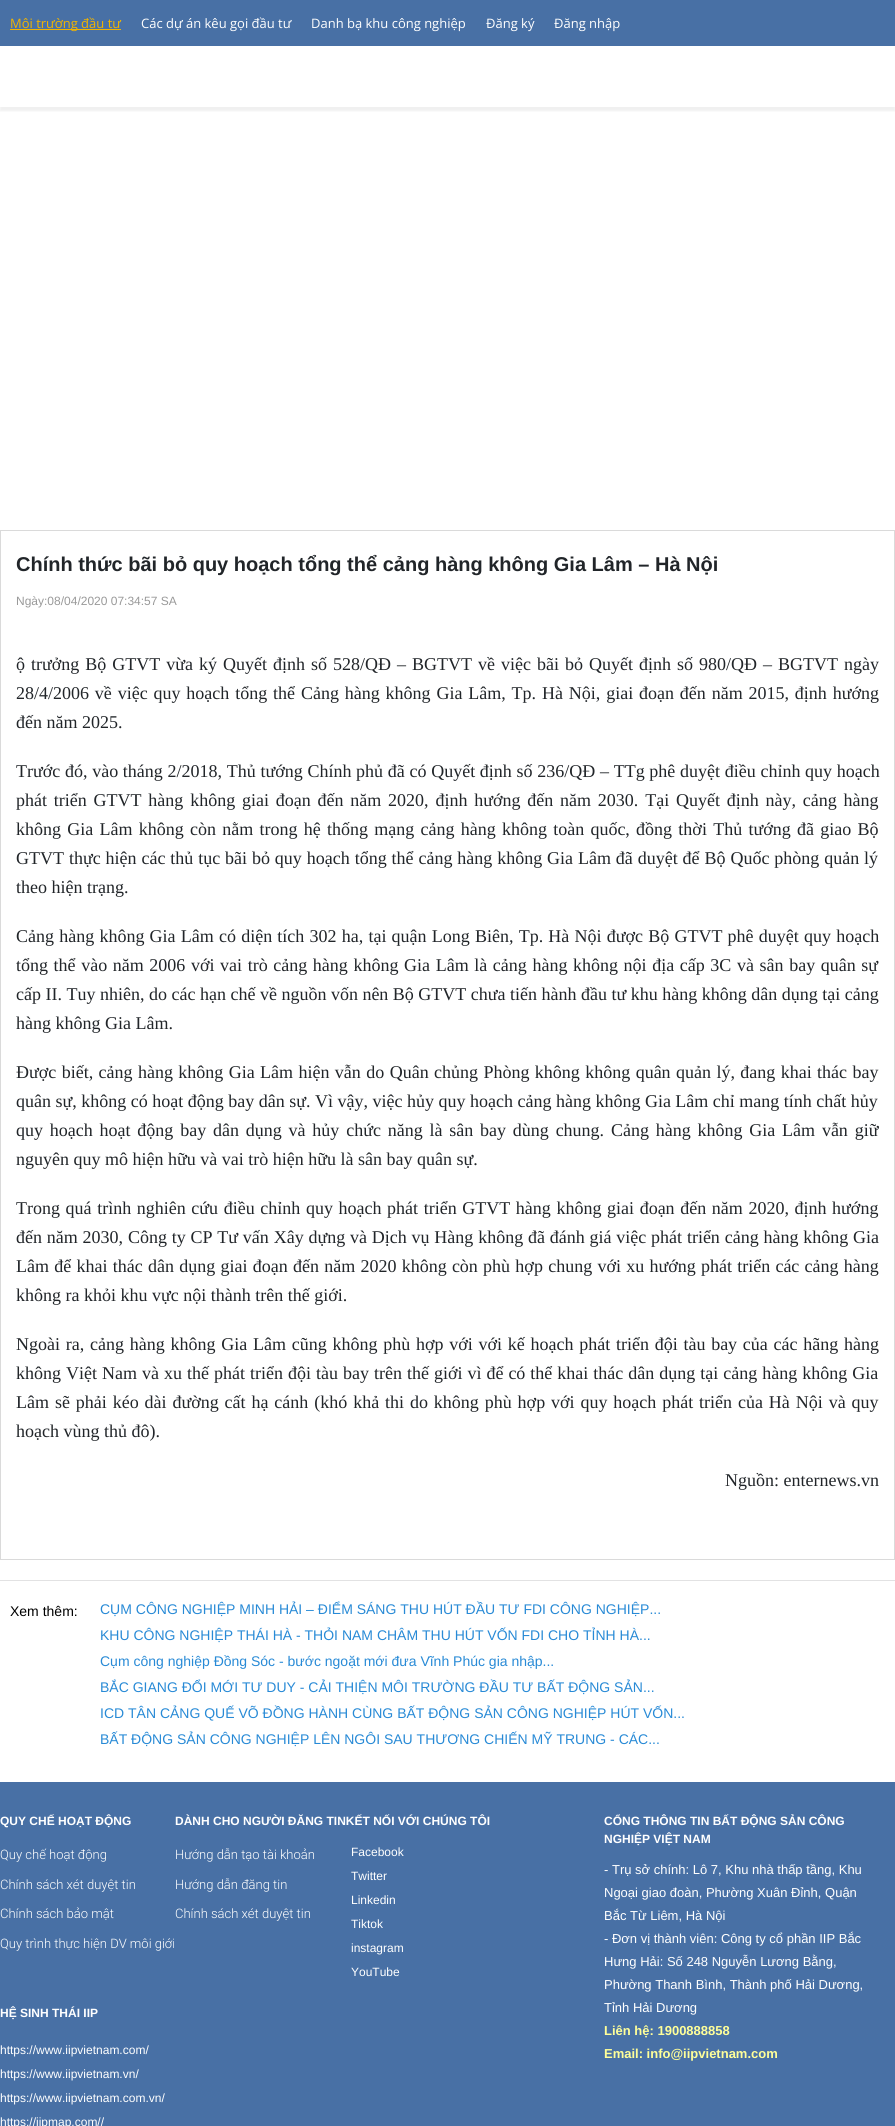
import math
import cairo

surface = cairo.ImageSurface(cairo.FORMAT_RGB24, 895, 2126)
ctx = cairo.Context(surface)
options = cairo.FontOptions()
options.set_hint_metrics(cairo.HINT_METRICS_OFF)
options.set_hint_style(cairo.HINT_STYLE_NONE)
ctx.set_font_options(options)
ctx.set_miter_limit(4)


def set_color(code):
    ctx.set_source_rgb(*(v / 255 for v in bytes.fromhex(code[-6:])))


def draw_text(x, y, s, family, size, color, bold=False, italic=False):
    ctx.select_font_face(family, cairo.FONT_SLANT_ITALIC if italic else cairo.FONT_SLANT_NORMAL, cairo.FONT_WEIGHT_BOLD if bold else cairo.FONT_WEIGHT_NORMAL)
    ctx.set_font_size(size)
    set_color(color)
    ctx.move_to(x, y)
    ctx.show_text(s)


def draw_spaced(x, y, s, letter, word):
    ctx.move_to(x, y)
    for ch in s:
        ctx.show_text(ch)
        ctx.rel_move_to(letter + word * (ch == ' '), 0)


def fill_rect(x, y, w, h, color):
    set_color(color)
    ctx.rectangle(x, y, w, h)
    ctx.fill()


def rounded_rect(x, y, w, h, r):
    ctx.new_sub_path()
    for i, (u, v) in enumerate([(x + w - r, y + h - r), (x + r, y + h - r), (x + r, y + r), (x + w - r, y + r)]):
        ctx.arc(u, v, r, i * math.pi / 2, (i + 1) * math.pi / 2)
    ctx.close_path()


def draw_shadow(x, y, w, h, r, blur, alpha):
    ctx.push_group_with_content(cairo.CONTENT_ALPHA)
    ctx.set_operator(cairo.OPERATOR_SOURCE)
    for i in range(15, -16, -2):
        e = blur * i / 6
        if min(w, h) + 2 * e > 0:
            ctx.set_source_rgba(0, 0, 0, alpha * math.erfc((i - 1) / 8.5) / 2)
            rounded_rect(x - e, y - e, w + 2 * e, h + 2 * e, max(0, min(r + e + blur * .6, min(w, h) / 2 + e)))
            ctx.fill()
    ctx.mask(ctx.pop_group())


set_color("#ffffff")
ctx.paint()
fill_rect(0, 0, 895, 46, "#4870a5")
fill_rect(10, 29, 111, 1, "#f1b400")
draw_text(10, 28, "Môi trường đầu tư", "Open Sans", 13, "#f1b400")
draw_text(141, 28, "Các dự án kêu gọi đầu tư", "Open Sans", 13, "#ffffff")
draw_text(311, 28, "Danh bạ khu công nghiệp", "Open Sans", 13, "#ffffff")
draw_text(486, 28, "Đăng ký", "Open Sans", 13, "#ffffff")
draw_text(554, 28, "Đăng nhập", "Open Sans", 13, "#ffffff")
ctx.save()
ctx.rectangle(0, 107, 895, 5)
ctx.clip()
set_color("#cccccc")
draw_shadow(0, 50, 895, 61, 0, 1, 0.3)
ctx.restore()
ctx.rectangle(0.5, 530.5, 894, 1029)
set_color("#dadada")
ctx.set_line_width(1)
ctx.stroke()
draw_text(16, 571, "Chính thức bãi bỏ quy hoạch tổng thể cảng hàng không Gia Lâm – Hà Nội", "Liberation Sans", 20, "#212529", bold=True)
draw_text(16, 605, "Ngày:08/04/2020 07:34:57 SA", "Liberation Sans", 12, "#999999")
ctx.select_font_face("Liberation Serif")
ctx.set_font_size(18)
set_color("#212529")
draw_spaced(16, 670, "ộ trưởng Bộ GTVT vừa ký Quyết định số 528/QĐ – BGTVT về việc bãi bỏ Quyết định số 980/QĐ – BGTVT ngày", 0, 1.5)
draw_spaced(16, 699, "28/4/2006 về việc quy hoạch tổng thể Cảng hàng không Gia Lâm, Tp. Hà Nội, giai đoạn đến năm 2015, định hướng", 0, 1.35)
draw_text(16, 728, "đến năm 2025.", "Liberation Serif", 18, "#212529")
draw_spaced(16, 777, "Trước đó, vào tháng 2/2018, Thủ tướng Chính phủ đã có Quyết định số 236/QĐ – TTg phê duyệt điều chỉnh quy hoạch", 0, 0.2)
draw_spaced(16, 806, "phát triển GTVT hàng không giai đoạn đến năm 2020, định hướng đến năm 2030. Tại Quyết định này, cảng hàng", 0, 2.3)
draw_spaced(16, 835, "không Gia Lâm không còn nằm trong hệ thống mạng cảng hàng không toàn quốc, đồng thời Thủ tướng đã giao Bộ", 0, 1.75)
draw_spaced(16, 864, "GTVT thực hiện các thủ tục bãi bỏ quy hoạch tổng thể cảng hàng không Gia Lâm đã duyệt để Bộ Quốc phòng quản lý", 0, 0.4)
draw_text(16, 893, "theo hiện trạng.", "Liberation Serif", 18, "#212529")
draw_spaced(16, 942, "Cảng hàng không Gia Lâm có diện tích 302 ha, tại quận Long Biên, Tp. Hà Nội được Bộ GTVT phê duyệt quy hoạch", 0, 0.7)
draw_spaced(16, 971, "tổng thể vào năm 2006 với vai trò cảng hàng không Gia Lâm là cảng hàng không nội địa cấp 3C và sân bay quân sự", 0, 1.1)
draw_text(16, 1000, "cấp II. Tuy nhiên, do các hạn chế về nguồn vốn nên Bộ GTVT chưa tiến hành đầu tư khu hàng không dân dụng tại cảng", "Liberation Serif", 18, "#212529")
draw_text(16, 1029, "hàng không Gia Lâm.", "Liberation Serif", 18, "#212529")
draw_spaced(16, 1078, "Được biết, cảng hàng không Gia Lâm hiện vẫn do Quân chủng Phòng không không quân quản lý, đang khai thác bay", 0, 0.9)
draw_text(16, 1107, "quân sự, không có hoạt động bay dân sự. Vì vậy, việc hủy quy hoạch cảng hàng không Gia Lâm chỉ mang tính chất hủy", "Liberation Serif", 18, "#212529")
draw_spaced(16, 1136, "quy hoạch hoạt động bay dân dụng và hủy chức năng là sân bay dùng chung. Cảng hàng không Gia Lâm vẫn giữ", 0, 2.3)
draw_text(16, 1165, "nguyên quy mô hiện hữu và vai trò hiện hữu là sân bay quân sự.", "Liberation Serif", 18, "#212529")
draw_spaced(16, 1214, "Trong quá trình nghiên cứu điều chỉnh quy hoạch phát triển GTVT hàng không giai đoạn đến năm 2020, định hướng", 0, 1.1)
draw_spaced(16, 1243, "đến năm 2030, Công ty CP Tư vấn Xây dựng và Dịch vụ Hàng không đã đánh giá việc phát triển cảng hàng không Gia", 0, 0.3)
draw_spaced(16, 1272, "Lâm để khai thác dân dụng giai đoạn đến năm 2020 không còn phù hợp chung với xu hướng phát triển các cảng hàng", 0, 0.75)
draw_text(16, 1301, "không ra khỏi khu vực nội thành trên thế giới.", "Liberation Serif", 18, "#212529")
draw_spaced(16, 1350, "Ngoài ra, cảng hàng không Gia Lâm cũng không phù hợp với với kế hoạch phát triển đội tàu bay của các hãng hàng", 0, 1.25)
draw_spaced(16, 1379, "không Việt Nam và xu thế phát triển đội tàu bay trên thế giới vì để có thể khai thác dân dụng tại cảng hàng không Gia", 0, 0.5)
draw_spaced(16, 1408, "Lâm sẽ phải kéo dài đường cất hạ cánh (khó khả thi do không phù hợp với quy hoạch phát triển của Hà Nội và quy", 0, 1.4)
draw_text(16, 1437, "hoạch vùng thủ đô).", "Liberation Serif", 18, "#212529")
draw_text(725, 1486, "Nguồn: enternews.vn", "Liberation Serif", 18, "#212529")
fill_rect(0, 1580, 895, 1, "#e2e2e3")
draw_text(10, 1616, "Xem thêm:", "Liberation Sans", 14, "#000000")
draw_text(100, 1614, "CỤM CÔNG NGHIỆP MINH HẢI – ĐIỂM SÁNG THU HÚT ĐẦU TƯ FDI CÔNG NGHIỆP...", "Liberation Sans", 14, "#288ad6")
draw_text(100, 1640, "KHU CÔNG NGHIỆP THÁI HÀ - THỎI NAM CHÂM THU HÚT VỐN FDI CHO TỈNH HÀ...", "Liberation Sans", 14, "#288ad6")
draw_text(100, 1666, "Cụm công nghiệp Đồng Sóc - bước ngoặt mới đưa Vĩnh Phúc gia nhập...", "Liberation Sans", 14, "#288ad6")
draw_text(100, 1692, "BẮC GIANG ĐỔI MỚI TƯ DUY - CẢI THIỆN MÔI TRƯỜNG ĐẦU TƯ BẤT ĐỘNG SẢN...", "Liberation Sans", 14, "#288ad6")
draw_text(100, 1718, "ICD TÂN CẢNG QUẾ VÕ ĐỒNG HÀNH CÙNG BẤT ĐỘNG SẢN CÔNG NGHIỆP HÚT VỐN...", "Liberation Sans", 14, "#288ad6")
draw_text(100, 1744, "BẤT ĐỘNG SẢN CÔNG NGHIỆP LÊN NGÔI SAU THƯƠNG CHIẾN MỸ TRUNG - CÁC...", "Liberation Sans", 14, "#288ad6")
fill_rect(0, 1782, 895, 344, "#4870a5")
draw_text(0, 1825, "QUY CHẾ HOẠT ĐỘNG", "Liberation Sans", 12, "#ffffff", bold=True)
draw_text(0, 1859, "Quy chế hoạt động", "Roboto Light", 13, "#ffffff")
draw_text(0, 1889, "Chính sách xét duyệt tin", "Roboto Light", 13, "#ffffff")
draw_text(0, 1918, "Chính sách bảo mật", "Roboto Light", 13, "#ffffff")
draw_text(0, 1948, "Quy trình thực hiện DV môi giới", "Roboto Light", 13, "#ffffff")
draw_text(175, 1825, "DÀNH CHO NGƯỜI ĐĂNG TINKẾT NỐI VỚI CHÚNG TÔI", "Liberation Sans", 12, "#ffffff", bold=True)
draw_text(175, 1859, "Hướng dẫn tạo tài khoản", "Roboto Light", 13, "#ffffff")
draw_text(175, 1889, "Hướng dẫn đăng tin", "Roboto Light", 13, "#ffffff")
draw_text(175, 1918, "Chính sách xét duyệt tin", "Roboto Light", 13, "#ffffff")
draw_text(351, 1856, "Facebook", "Liberation Sans", 12, "#ffffff")
draw_text(351, 1880, "Twitter", "Liberation Sans", 12, "#ffffff")
draw_text(351, 1904, "Linkedin", "Liberation Sans", 12, "#ffffff")
draw_text(351, 1928, "Tiktok", "Liberation Sans", 12, "#ffffff")
draw_text(351, 1952, "instagram", "Liberation Sans", 12, "#ffffff")
draw_text(351, 1976, "YouTube", "Liberation Sans", 12, "#ffffff")
draw_text(0, 2017, "HỆ SINH THÁI IIP", "Liberation Sans", 12, "#ffffff", bold=True)
draw_text(0, 2054, "https://www.iipvietnam.com/", "Liberation Sans", 12, "#ffffff")
draw_text(0, 2078, "https://www.iipvietnam.vn/", "Liberation Sans", 12, "#ffffff")
draw_text(0, 2102, "https://www.iipvietnam.com.vn/", "Liberation Sans", 12, "#ffffff")
draw_text(0, 2126, "https://iipmap.com//", "Liberation Sans", 12, "#ffffff")
draw_text(604, 1825, "CỔNG THÔNG TIN BẤT ĐỘNG SẢN CÔNG", "Liberation Sans", 12, "#ffffff", bold=True)
draw_text(604, 1843, "NGHIỆP VIỆT NAM", "Liberation Sans", 12, "#ffffff", bold=True)
draw_text(604, 1874, "- Trụ sở chính: Lô 7, Khu nhà thấp tầng, Khu", "Liberation Sans", 13, "#ffffff")
draw_text(604, 1897, "Ngoại giao đoàn, Phường Xuân Đỉnh, Quận", "Liberation Sans", 13, "#ffffff")
draw_text(604, 1920, "Bắc Từ Liêm, Hà Nội", "Liberation Sans", 13, "#ffffff")
draw_text(604, 1943, "- Đơn vị thành viên: Công ty cổ phần IIP Bắc", "Liberation Sans", 13, "#ffffff")
draw_text(604, 1966, "Hưng Hải: Số 248 Nguyễn Lương Bằng,", "Liberation Sans", 13, "#ffffff")
draw_text(604, 1989, "Phường Thanh Bình, Thành phố Hải Dương,", "Liberation Sans", 13, "#ffffff")
draw_text(604, 2012, "Tỉnh Hải Dương", "Liberation Sans", 13, "#ffffff")
draw_text(604, 2035, "Liên hệ: 1900888858", "Liberation Sans", 13, "#ffff99", bold=True)
draw_text(604, 2058, "Email: info@iipvietnam.com", "Liberation Sans", 13, "#ffff99", bold=True)
surface.write_to_png("output.png")
